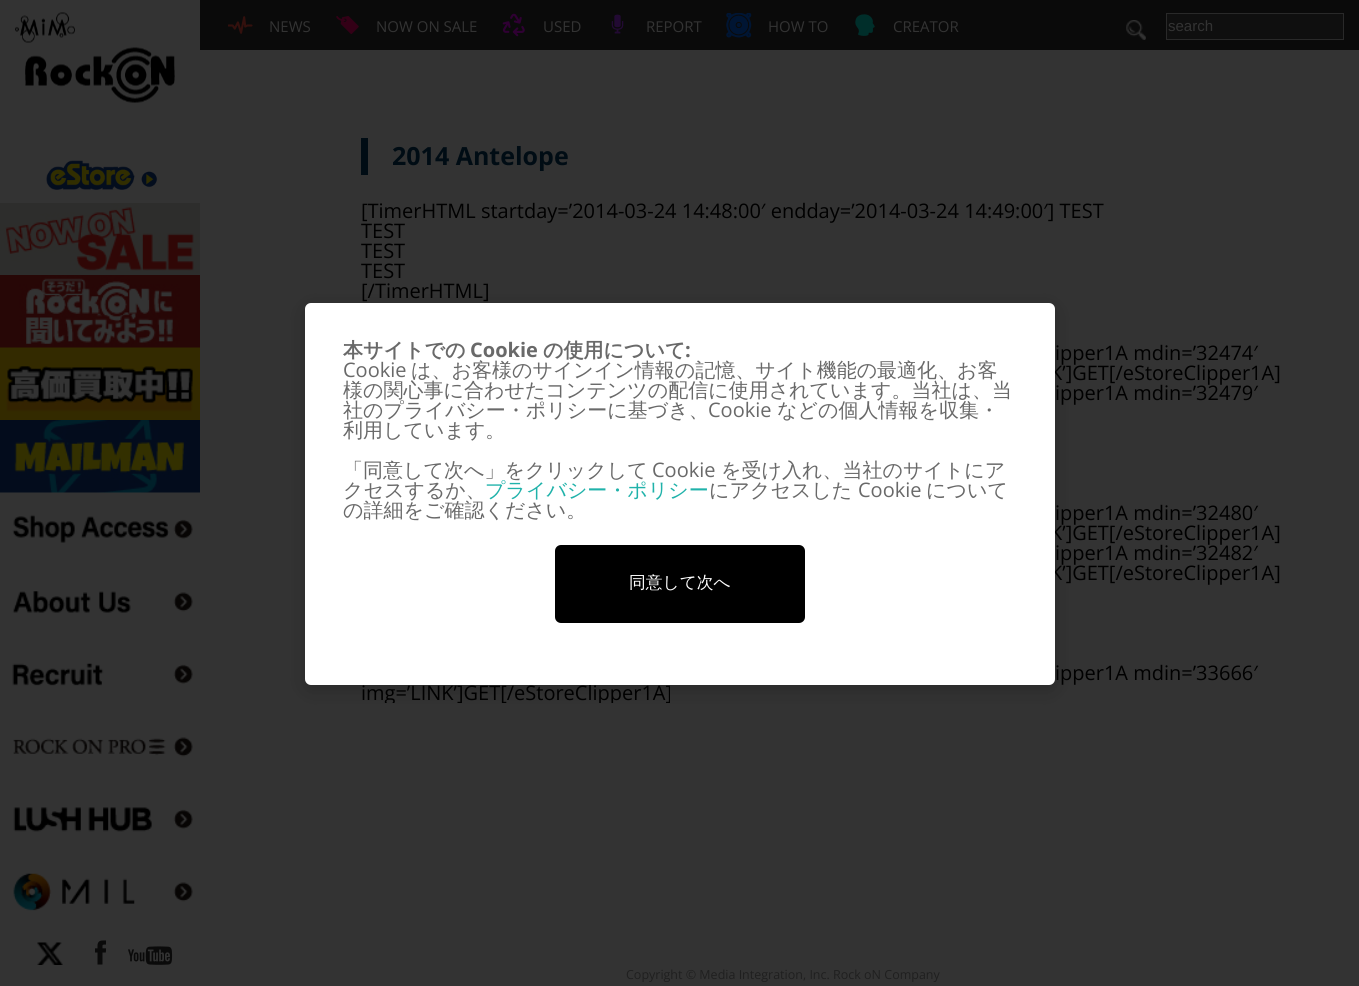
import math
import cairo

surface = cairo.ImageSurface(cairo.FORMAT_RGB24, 1359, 986)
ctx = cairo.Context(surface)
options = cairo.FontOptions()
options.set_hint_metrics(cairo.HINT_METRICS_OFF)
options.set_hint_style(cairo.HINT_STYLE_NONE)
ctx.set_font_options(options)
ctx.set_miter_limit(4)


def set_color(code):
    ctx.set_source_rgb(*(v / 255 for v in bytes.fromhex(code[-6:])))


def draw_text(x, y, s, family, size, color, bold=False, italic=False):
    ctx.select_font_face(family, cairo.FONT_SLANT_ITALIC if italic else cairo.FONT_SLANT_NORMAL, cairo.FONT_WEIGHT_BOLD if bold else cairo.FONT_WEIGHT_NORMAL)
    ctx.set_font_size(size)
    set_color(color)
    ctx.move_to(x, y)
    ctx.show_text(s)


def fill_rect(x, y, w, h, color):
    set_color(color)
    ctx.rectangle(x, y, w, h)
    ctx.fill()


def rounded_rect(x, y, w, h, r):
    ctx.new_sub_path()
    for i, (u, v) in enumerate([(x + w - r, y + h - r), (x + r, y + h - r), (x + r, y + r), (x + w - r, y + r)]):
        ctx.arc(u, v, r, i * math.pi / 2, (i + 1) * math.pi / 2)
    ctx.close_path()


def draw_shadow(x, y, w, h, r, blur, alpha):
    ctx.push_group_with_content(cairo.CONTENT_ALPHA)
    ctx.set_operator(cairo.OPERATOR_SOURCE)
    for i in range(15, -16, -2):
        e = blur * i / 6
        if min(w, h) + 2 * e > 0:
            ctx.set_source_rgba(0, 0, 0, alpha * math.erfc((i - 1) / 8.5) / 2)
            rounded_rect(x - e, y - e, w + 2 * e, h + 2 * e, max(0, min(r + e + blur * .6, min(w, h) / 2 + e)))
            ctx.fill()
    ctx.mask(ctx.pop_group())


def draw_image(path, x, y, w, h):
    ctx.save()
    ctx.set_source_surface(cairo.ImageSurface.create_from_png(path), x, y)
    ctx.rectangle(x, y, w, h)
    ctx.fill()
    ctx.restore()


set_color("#333333")
ctx.paint()
draw_image("assets/img1.png", 15, 12, 60, 31)
draw_image("assets/img2.png", 25, 47, 150, 56)
draw_image("assets/img3.png", 46, 160, 112, 30)
draw_image("assets/img4.png", 0, 203, 200, 72)
draw_image("assets/img5.png", 0, 275, 200, 73)
draw_image("assets/img6.png", 0, 347, 200, 73)
draw_image("assets/img7.png", 0, 420, 200, 73)
draw_image("assets/img8.png", 0, 492, 200, 51)
draw_image("assets/img9.png", 12, 591, 181, 22)
draw_image("assets/img10.png", 12, 663, 181, 23)
draw_image("assets/img11.png", 13, 737, 180, 20)
draw_image("assets/img12.png", 13, 807, 180, 25)
draw_image("assets/img13.png", 13, 873, 180, 38)
draw_image("assets/img14.png", 37, 942, 26, 23)
draw_image("assets/img15.png", 95, 940, 11, 25)
draw_image("assets/img16.png", 128, 946, 45, 19)
fill_rect(200, 0, 1159, 50, "#0a0a0a")
draw_image("assets/img17.png", 228, 16, 25, 18)
draw_text(269, 32, "NEWS", "Open Sans", 15, "#333333")
draw_image("assets/img18.png", 336, 16, 23, 18)
draw_text(376, 32, "NOW ON SALE", "Open Sans", 15, "#333333")
draw_image("assets/img19.png", 502, 13, 23, 24)
draw_text(543, 32, "USED", "Open Sans", 15, "#333333")
draw_image("assets/img20.png", 611, 14, 13, 20)
draw_text(646, 32, "REPORT", "Open Sans", 15, "#333333")
draw_image("assets/img21.png", 726, 13, 26, 25)
draw_text(768, 32, "HOW TO", "Open Sans", 15, "#333333")
draw_image("assets/img22.png", 855, 14, 20, 22)
draw_text(893, 32, "CREATOR", "Open Sans", 15, "#333333")
draw_image("assets/img23.png", 1126, 20, 20, 20)
set_color("#0f0f0f")
ctx.rectangle(1166.5, 13.5, 177, 26)
ctx.fill_preserve()
set_color("#292929")
ctx.set_line_width(1)
ctx.stroke()
draw_text(1168, 31, "search", "Liberation Sans", 15, "#333333")
fill_rect(361, 138, 7, 37, "#000c14")
draw_text(392, 165, "2014 Antelope", "Open Sans", 25, "#000c14", bold=True)
draw_text(361, 218, "[TimerHTML startday=’2014-03-24 14:48:00′ endday=’2014-03-24 14:49:00′] TEST", "Open Sans", 20, "#000000")
draw_text(361, 238, "TEST", "Open Sans", 20, "#000000")
draw_text(361, 258, "TEST", "Open Sans", 20, "#000000")
draw_text(361, 278, "TEST", "Open Sans", 20, "#000000")
draw_text(361, 298, "[/TimerHTML]", "Open Sans", 20, "#000000")
draw_text(1055, 360, "ipper1A mdin=’32474′", "Open Sans", 20, "#000000")
draw_text(1050, 380, "K’]GET[/eStoreClipper1A]", "Open Sans", 20, "#000000")
draw_text(1055, 400, "ipper1A mdin=’32479′", "Open Sans", 20, "#000000")
draw_text(1055, 520, "ipper1A mdin=’32480′", "Open Sans", 20, "#000000")
draw_text(1050, 540, "K’]GET[/eStoreClipper1A]", "Open Sans", 20, "#000000")
draw_text(1055, 560, "ipper1A mdin=’32482′", "Open Sans", 20, "#000000")
draw_text(1050, 580, "K’]GET[/eStoreClipper1A]", "Open Sans", 20, "#000000")
draw_text(1055, 680, "ipper1A mdin=’33666′", "Open Sans", 20, "#000000")
ctx.save()
ctx.rectangle(361, 113, 930, 590)
ctx.clip()
draw_text(361, 700, "img=’LINK’]GET[/eStoreClipper1A]", "Open Sans", 20, "#000000")
ctx.restore()
draw_text(626, 979, "Copyright © Media Integration, Inc. Rock oN Company", "Open Sans", 12.5, "#1f1f1f")
set_color("#000000")
draw_shadow(305, 308, 750, 382, 6, 9.5, 0.2)
set_color("#ffffff")
rounded_rect(305, 303, 750, 382, 6)
ctx.fill()
draw_text(343, 357, "本サイトでの", "WenQuanYi Zen Hei", 20, "#696969", bold=True)
draw_text(470, 357, "Cookie", "Open Sans", 20, "#696969", bold=True)
draw_text(543, 357, "の使用について", "WenQuanYi Zen Hei", 20, "#696969", bold=True)
draw_text(685, 357, ":", "Open Sans", 20, "#696969", bold=True)
draw_text(343, 377, "Cookie", "Open Sans", 20, "#696969")
draw_text(411, 377, "は、お客様のサインイン情報の記憶、サイト機能の最適化、お客", "WenQuanYi Zen Hei Medium", 20, "#696969")
draw_text(343, 397, "様の関心事に合わせたコンテンツの配信に使用されています。当社は、当", "WenQuanYi Zen Hei Medium", 20, "#696969")
draw_text(343, 417, "社のプライバシー・ポリシーに基づき、", "WenQuanYi Zen Hei Medium", 20, "#696969")
draw_text(708, 417, "Cookie", "Open Sans", 20, "#696969")
draw_text(777, 417, "などの個人情報を収集・", "WenQuanYi Zen Hei Medium", 20, "#696969")
draw_text(343, 437, "利用しています。", "WenQuanYi Zen Hei Medium", 20, "#696969")
draw_text(343, 477, "「同意して次へ」をクリックして", "WenQuanYi Zen Hei Medium", 20, "#696969")
draw_text(652, 477, "Cookie", "Open Sans", 20, "#696969")
draw_text(721, 477, "を受け入れ、当社のサイトにア", "WenQuanYi Zen Hei Medium", 20, "#696969")
draw_text(343, 497, "クセスするか、", "WenQuanYi Zen Hei Medium", 20, "#696969")
draw_text(485, 497, "プライバシー・ポリシー", "WenQuanYi Zen Hei Medium", 20, "#20b2aa")
draw_text(709, 497, "にアクセスした", "WenQuanYi Zen Hei Medium", 20, "#696969")
draw_text(858, 497, "Cookie", "Open Sans", 20, "#696969")
draw_text(926, 497, "について", "WenQuanYi Zen Hei Medium", 20, "#696969")
draw_text(343, 517, "の詳細をご確認ください。", "WenQuanYi Zen Hei Medium", 20, "#696969")
set_color("#000000")
rounded_rect(556.5, 546.5, 247, 75, 4.5)
ctx.fill_preserve()
ctx.set_line_width(3)
ctx.stroke()
draw_text(629, 588, "同意して次へ", "WenQuanYi Zen Hei Medium", 16.75, "#ffffff")
surface.write_to_png("output.png")
